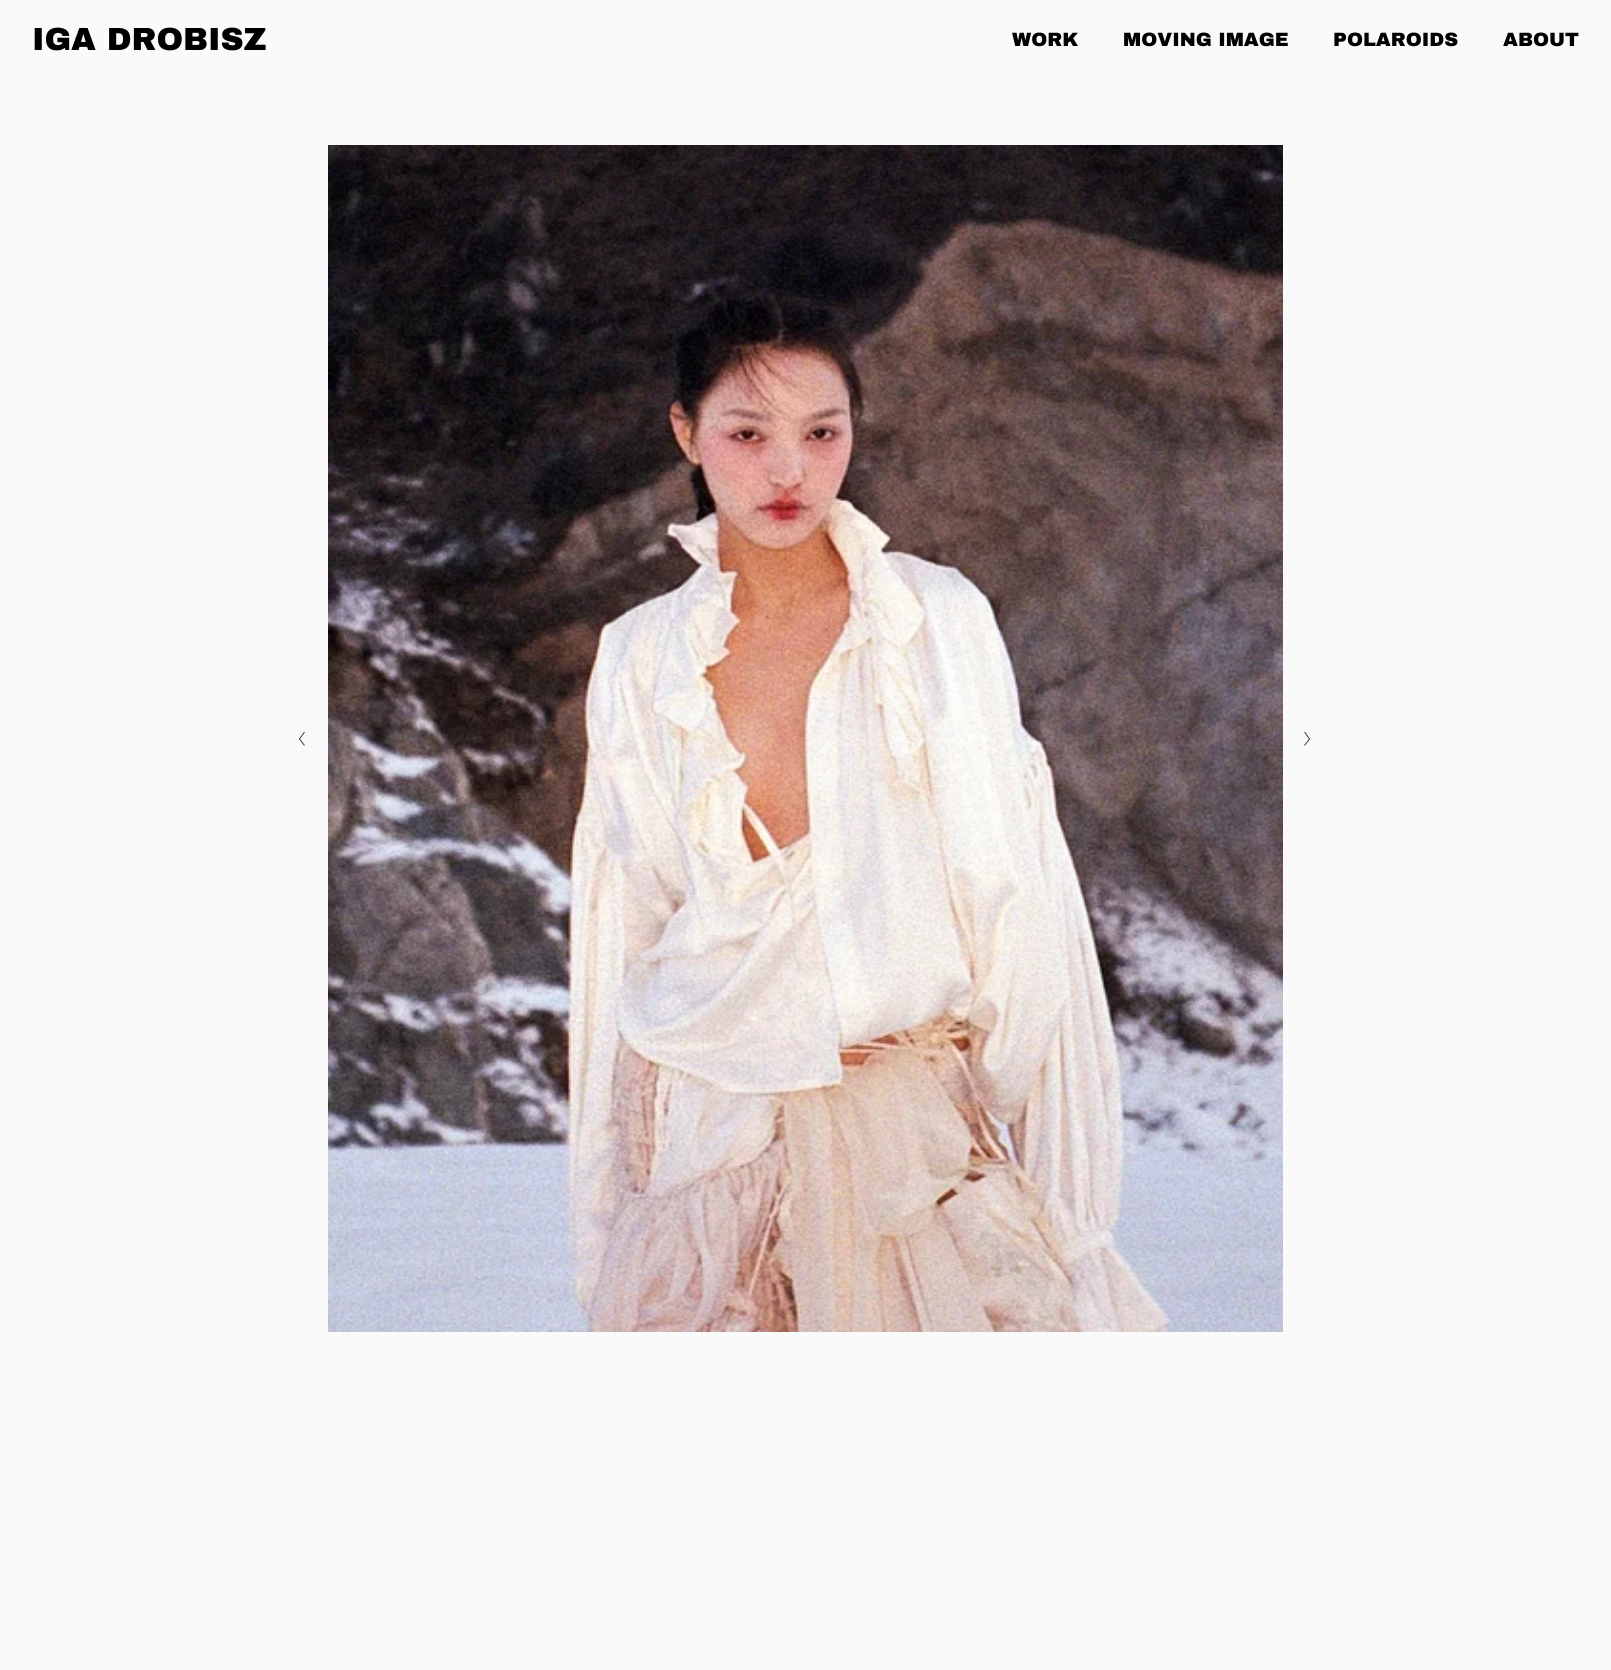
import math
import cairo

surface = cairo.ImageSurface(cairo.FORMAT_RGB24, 1611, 1670)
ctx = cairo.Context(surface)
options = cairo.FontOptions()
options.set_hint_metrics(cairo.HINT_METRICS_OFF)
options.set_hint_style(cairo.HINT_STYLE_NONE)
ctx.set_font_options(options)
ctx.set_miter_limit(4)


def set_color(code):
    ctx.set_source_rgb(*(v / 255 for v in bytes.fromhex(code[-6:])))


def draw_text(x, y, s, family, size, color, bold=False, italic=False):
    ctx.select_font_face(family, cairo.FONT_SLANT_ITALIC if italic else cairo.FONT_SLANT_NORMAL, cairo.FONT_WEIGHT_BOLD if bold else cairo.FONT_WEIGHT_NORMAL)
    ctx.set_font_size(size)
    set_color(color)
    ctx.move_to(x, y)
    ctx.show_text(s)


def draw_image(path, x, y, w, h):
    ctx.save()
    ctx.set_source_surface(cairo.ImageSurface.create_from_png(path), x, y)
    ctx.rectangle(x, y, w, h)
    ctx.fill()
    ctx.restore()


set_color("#fafafa")
ctx.paint()
draw_text(32, 50, "IGA DROBISZ", "Archivo Black Black", 32, "#000000")
draw_text(1012, 46, "WORK", "Archivo Black Black", 19.25, "#000000")
draw_text(1123, 46, "MOVING IMAGE", "Archivo Black Black", 19.25, "#000000")
draw_text(1333, 46, "POLAROIDS", "Archivo Black Black", 19.25, "#000000")
draw_text(1503, 46, "ABOUT", "Archivo Black Black", 19.25, "#000000")
draw_image("assets/img1.png", 328, 145, 955, 1187)
ctx.new_path()
ctx.move_to(304.5, 745.5)
ctx.line_to(299.5, 739)
ctx.line_to(304.5, 732)
set_color("#3f3f3f")
ctx.set_line_width(1)
ctx.stroke()
ctx.new_path()
ctx.move_to(1304.5, 732)
ctx.line_to(1309.5, 739)
ctx.line_to(1304.5, 745.5)
ctx.stroke()
surface.write_to_png("output.png")
